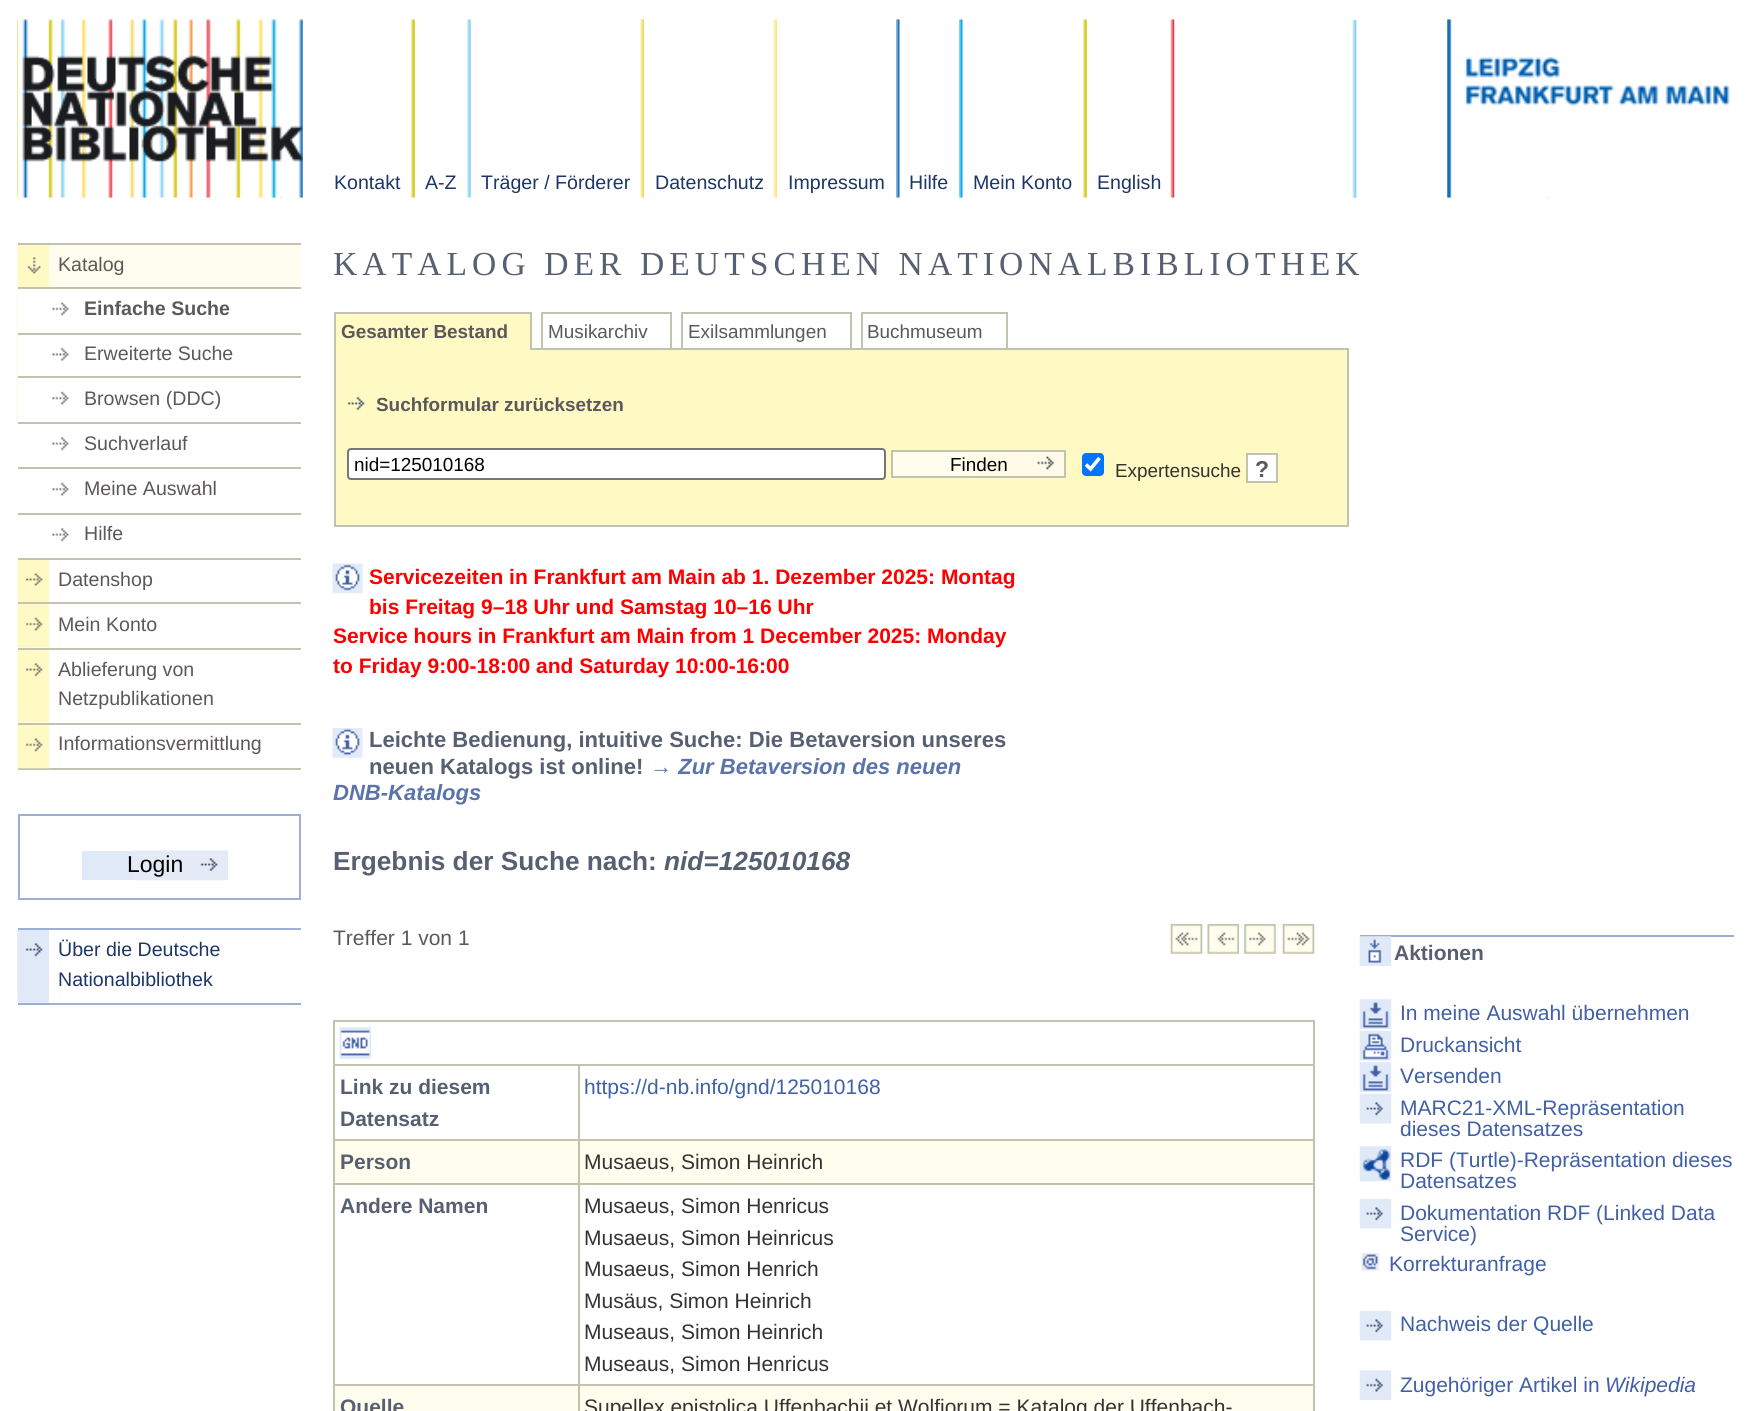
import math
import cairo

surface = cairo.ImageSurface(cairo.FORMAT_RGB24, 1747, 1411)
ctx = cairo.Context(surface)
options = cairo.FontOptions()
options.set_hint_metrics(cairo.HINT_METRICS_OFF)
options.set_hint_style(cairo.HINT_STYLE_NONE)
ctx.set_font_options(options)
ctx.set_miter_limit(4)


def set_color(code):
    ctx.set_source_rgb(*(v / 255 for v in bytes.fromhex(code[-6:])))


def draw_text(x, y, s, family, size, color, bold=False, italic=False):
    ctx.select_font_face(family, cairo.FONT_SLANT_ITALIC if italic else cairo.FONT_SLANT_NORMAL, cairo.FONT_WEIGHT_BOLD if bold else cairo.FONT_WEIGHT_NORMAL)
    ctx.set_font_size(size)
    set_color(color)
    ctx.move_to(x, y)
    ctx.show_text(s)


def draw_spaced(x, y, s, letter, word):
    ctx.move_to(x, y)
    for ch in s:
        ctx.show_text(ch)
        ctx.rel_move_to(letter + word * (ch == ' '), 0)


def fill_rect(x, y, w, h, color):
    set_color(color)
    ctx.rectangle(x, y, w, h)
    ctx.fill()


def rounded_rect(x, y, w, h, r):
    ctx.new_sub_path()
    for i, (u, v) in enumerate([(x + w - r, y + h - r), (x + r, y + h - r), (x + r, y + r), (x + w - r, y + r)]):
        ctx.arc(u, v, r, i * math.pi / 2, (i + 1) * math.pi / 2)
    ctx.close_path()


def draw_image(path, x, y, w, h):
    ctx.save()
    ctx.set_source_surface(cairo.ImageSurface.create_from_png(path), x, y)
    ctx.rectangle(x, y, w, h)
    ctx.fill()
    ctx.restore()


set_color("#ffffff")
ctx.paint()
draw_image("assets/img1.png", 17, 19, 1533, 179)
ctx.rectangle(19, 19, 1718, 180)
set_color("#ffffff")
ctx.stroke()
draw_image("assets/img2.png", 22, 19, 281, 179)
fill_rect(403, 20, 770, 178, "#ffffff")
draw_image("assets/img3.png", 411, 19, 4, 179)
draw_text(334, 189, "Kontakt", "Liberation Sans", 19.6, "#1c3667")
draw_image("assets/img4.png", 467, 19, 4, 179)
draw_text(425, 189, "A-Z", "Liberation Sans", 19.6, "#1c3667")
draw_image("assets/img5.png", 640, 19, 4, 179)
draw_text(481, 189, "Träger / Förderer", "Liberation Sans", 19.6, "#1c3667")
draw_image("assets/img6.png", 773, 19, 4, 179)
draw_text(655, 189, "Datenschutz", "Liberation Sans", 19.6, "#1c3667")
draw_image("assets/img7.png", 896, 19, 4, 179)
draw_text(788, 189, "Impressum", "Liberation Sans", 19.6, "#1c3667")
draw_image("assets/img8.png", 959, 19, 4, 179)
draw_text(909, 189, "Hilfe", "Liberation Sans", 19.6, "#1c3667")
draw_image("assets/img3.png", 1083, 19, 4, 179)
draw_text(973, 189, "Mein Konto", "Liberation Sans", 19.6, "#1c3667")
draw_image("assets/img9.png", 1170, 19, 5, 179)
draw_text(1097, 189, "English", "Liberation Sans", 19.6, "#1c3667")
draw_image("assets/img10.png", 1447, 19, 283, 179)
fill_rect(18, 768, 283, 2, "#c1c3ae")
fill_rect(49, 245, 252, 42, "#fffded")
draw_image("assets/img11.png", 17, 245, 32, 175)
fill_rect(18, 243, 283, 2, "#c1c3ae")
draw_image("assets/img12.png", 17, 250, 24, 30)
draw_text(58, 271, "Katalog", "Liberation Sans", 19.6, "#5c575b")
fill_rect(18, 289, 31, 131, "#ffffff")
fill_rect(18, 287, 283, 2, "#c1c3ae")
draw_image("assets/img13.png", 52, 302, 17, 14)
draw_text(84, 315, "Einfache Suche", "Liberation Sans", 19.6, "#5c575b", bold=True)
fill_rect(18, 333, 283, 2, "#c1c3ae")
draw_image("assets/img14.png", 52, 347, 17, 14)
draw_text(84, 360, "Erweiterte Suche", "Liberation Sans", 19.6, "#5c575b")
fill_rect(18, 376, 283, 2, "#c1c3ae")
draw_image("assets/img15.png", 52, 391, 17, 14)
draw_text(84, 405, "Browsen (DDC)", "Liberation Sans", 19.6, "#5c575b")
fill_rect(18, 422, 283, 2, "#c1c3ae")
draw_image("assets/img16.png", 52, 437, 17, 14)
draw_text(84, 450, "Suchverlauf", "Liberation Sans", 19.6, "#5c575b")
fill_rect(18, 467, 283, 2, "#c1c3ae")
draw_image("assets/img15.png", 52, 482, 17, 14)
draw_text(84, 495, "Meine Auswahl", "Liberation Sans", 19.6, "#5c575b")
fill_rect(18, 513, 283, 2, "#c1c3ae")
draw_image("assets/img16.png", 52, 528, 17, 14)
draw_text(84, 540, "Hilfe", "Liberation Sans", 19.6, "#5c575b")
draw_image("assets/img17.png", 17, 560, 32, 42)
fill_rect(18, 558, 283, 2, "#c1c3ae")
draw_image("assets/img18.png", 17, 565, 26, 28)
draw_text(58, 586, "Datenshop", "Liberation Sans", 19.6, "#5c575b")
draw_image("assets/img19.png", 17, 603, 32, 45)
fill_rect(18, 602, 283, 2, "#c1c3ae")
draw_image("assets/img20.png", 17, 609, 26, 30)
draw_text(58, 631, "Mein Konto", "Liberation Sans", 19.6, "#5c575b")
draw_image("assets/img21.png", 17, 649, 32, 74)
fill_rect(18, 648, 283, 2, "#c1c3ae")
draw_image("assets/img22.png", 17, 654, 26, 60)
draw_text(58, 676, "Ablieferung von", "Liberation Sans", 19.6, "#5c575b")
draw_text(58, 705, "Netzpublikationen", "Liberation Sans", 19.6, "#5c575b")
draw_image("assets/img23.png", 17, 724, 32, 45)
fill_rect(18, 723, 283, 2, "#c1c3ae")
draw_image("assets/img24.png", 17, 730, 26, 30)
draw_text(58, 750, "Informationsvermittlung", "Liberation Sans", 19.6, "#5c575b")
ctx.rectangle(19, 815, 281, 84)
set_color("#9eadd6")
ctx.stroke()
fill_rect(82, 851, 146, 29, "#e0e9f8")
draw_image("assets/img25.png", 133, 850, 95, 31)
draw_text(127, 872, "Login", "Liberation Sans", 23, "#000000")
fill_rect(18, 1003, 283, 2, "#9dafd5")
draw_image("assets/img26.png", 17, 929, 32, 74)
fill_rect(18, 928, 283, 2, "#9dafd5")
draw_image("assets/img27.png", 17, 935, 26, 59)
draw_text(58, 956, "Über die Deutsche", "Liberation Sans", 19.6, "#1c3667")
draw_text(58, 986, "Nationalbibliothek", "Liberation Sans", 19.6, "#1c3667")
ctx.select_font_face("Liberation Serif")
ctx.set_font_size(33.6)
set_color("#576072")
draw_spaced(333, 275, "KATALOG DER DEUTSCHEN NATIONALBIBLIOTHEK", 5.05, 0)
ctx.rectangle(542, 313, 129, 52)
set_color("#c1c3ae")
ctx.stroke()
ctx.rectangle(682, 313, 169, 52)
ctx.stroke()
ctx.rectangle(862, 313, 145, 52)
ctx.stroke()
set_color("#fffac3")
ctx.rectangle(335, 349, 1013, 177)
ctx.fill_preserve()
set_color("#c1c3ae")
ctx.stroke()
fill_rect(336, 314, 194, 36, "#fffac3")
fill_rect(334, 312, 198, 2, "#c1c3ae")
fill_rect(530, 312, 2, 38, "#c1c3ae")
fill_rect(334, 312, 2, 38, "#c1c3ae")
draw_text(341, 338, "Gesamter Bestand", "Liberation Sans", 18.9, "#5c575b", bold=True)
draw_text(548, 338, "Musikarchiv", "Liberation Sans", 18.9, "#5c575b")
draw_text(688, 338, "Exilsammlungen", "Liberation Sans", 18.9, "#5c575b")
draw_text(867, 338, "Buchmuseum", "Liberation Sans", 18.9, "#5c575b")
draw_image("assets/img28.png", 347, 396, 18, 14)
draw_text(376, 411, "Suchformular zurücksetzen", "Liberation Sans", 18.9, "#5c575b", bold=True)
set_color("#ffffff")
rounded_rect(348, 449, 537, 30, 3)
ctx.fill_preserve()
set_color("#767676")
ctx.stroke()
draw_text(354, 471, "nid=125010168", "Liberation Sans", 18.9, "#000000")
fill_rect(893, 452, 77, 24, "#fffded")
draw_image("assets/img29.png", 969, 449, 95, 27)
ctx.rectangle(892, 451, 173, 26)
set_color("#c1c3ae")
ctx.stroke()
draw_text(950, 471, "Finden", "Liberation Sans", 18.9, "#000000")
set_color("#0075ff")
rounded_rect(1082, 453, 22, 23, 4)
ctx.fill()
ctx.new_path()
ctx.move_to(1086, 464.5)
ctx.line_to(1090.5, 469)
ctx.line_to(1099.5, 458)
set_color("#ffffff")
ctx.set_line_width(3.6)
ctx.stroke()
draw_text(1115, 477, "Expertensuche", "Liberation Sans", 18.9, "#333333")
set_color("#ffffff")
ctx.rectangle(1247, 454, 30, 28)
ctx.fill_preserve()
set_color("#c1c3ae")
ctx.set_line_width(2)
ctx.stroke()
draw_text(1255, 477, "?", "Liberation Sans", 23, "#5c575b", bold=True)
draw_image("assets/img30.png", 332, 563, 31, 31)
draw_text(369, 584, "Servicezeiten in Frankfurt am Main ab 1. Dezember 2025: Montag", "Liberation Sans", 21, "#ff0000", bold=True)
draw_text(369, 614, "bis Freitag 9–18 Uhr und Samstag 10–16 Uhr", "Liberation Sans", 21, "#ff0000", bold=True)
draw_text(333, 643, "Service hours in Frankfurt am Main from 1 December 2025: Monday", "Liberation Sans", 21, "#ff0000", bold=True)
draw_text(333, 673, "to Friday 9:00-18:00 and Saturday 10:00-16:00", "Liberation Sans", 21, "#ff0000", bold=True)
draw_image("assets/img31.png", 332, 728, 31, 30)
draw_text(369, 747, "Leichte Bedienung, intuitive Suche: Die Betaversion unseres", "Liberation Sans", 22.05, "#576072", bold=True)
draw_text(369, 774, "neuen Katalogs ist online!", "Liberation Sans", 22.05, "#576072", bold=True)
draw_text(650, 774, "→ Zur Betaversion des neuen", "Liberation Sans", 22.05, "#5a74a9", bold=True, italic=True)
draw_text(333, 800, "DNB-Katalogs", "Liberation Sans", 22.05, "#5a74a9", bold=True, italic=True)
draw_text(333, 870, "Ergebnis der Suche nach:", "Liberation Sans", 26.25, "#576072", bold=True)
draw_text(664, 870, "nid=125010168", "Liberation Sans", 26.25, "#576072", bold=True, italic=True)
draw_text(333, 945, "Treffer 1 von 1", "Liberation Sans", 21, "#5c575b")
draw_image("assets/img32.png", 1170, 924, 33, 30)
draw_image("assets/img33.png", 1207, 924, 32, 30)
draw_image("assets/img34.png", 1244, 924, 32, 30)
draw_image("assets/img35.png", 1282, 924, 33, 30)
fill_rect(333, 1020, 981, 2, "#c1c3ad")
fill_rect(1313, 1020, 2, 391, "#c1c3ad")
fill_rect(333, 1020, 2, 391, "#c1c3ad")
draw_image("assets/img36.png", 339, 1027, 32, 32)
fill_rect(333, 1064, 981, 2, "#c1c3ad")
draw_text(340, 1094, "Link zu diesem", "Liberation Sans", 21, "#576072", bold=True)
draw_text(340, 1126, "Datensatz", "Liberation Sans", 21, "#576072", bold=True)
draw_text(584, 1094, "https://d-nb.info/gnd/125010168", "Liberation Sans", 21, "#4160a5")
fill_rect(333, 1139, 981, 2, "#c1c3ad")
fill_rect(335, 1141, 243, 42, "#fffded")
draw_text(340, 1169, "Person", "Liberation Sans", 21, "#576072", bold=True)
fill_rect(580, 1141, 733, 42, "#fffded")
draw_text(584, 1169, "Musaeus, Simon Heinrich", "Liberation Sans", 21, "#333333")
fill_rect(333, 1183, 981, 2, "#c1c3ad")
draw_text(340, 1213, "Andere Namen", "Liberation Sans", 21, "#576072", bold=True)
draw_text(584, 1213, "Musaeus, Simon Henricus", "Liberation Sans", 21, "#333333")
draw_text(584, 1245, "Musaeus, Simon Heinricus", "Liberation Sans", 21, "#333333")
draw_text(584, 1276, "Musaeus, Simon Henrich", "Liberation Sans", 21, "#333333")
draw_text(584, 1308, "Musäus, Simon Heinrich", "Liberation Sans", 21, "#333333")
draw_text(584, 1339, "Museaus, Simon Heinrich", "Liberation Sans", 21, "#333333")
draw_text(584, 1371, "Museaus, Simon Henricus", "Liberation Sans", 21, "#333333")
fill_rect(333, 1384, 981, 2, "#c1c3ad")
fill_rect(335, 1386, 243, 25, "#fffded")
draw_text(340, 1414, "Quelle", "Liberation Sans", 21, "#576072", bold=True)
fill_rect(580, 1386, 733, 25, "#fffded")
fill_rect(578, 1064, 2, 347, "#c1c3ad")
draw_text(584, 1414, "Supellex epistolica Uffenbachii et Wolfiorum = Katalog der Uffenbach-", "Liberation Sans", 21, "#333333")
fill_rect(1360, 935, 374, 2, "#9eadd6")
draw_image("assets/img37.png", 1359, 936, 33, 30)
draw_text(1394, 960, "Aktionen", "Liberation Sans", 21, "#576072", bold=True)
draw_image("assets/img38.png", 1359, 999, 33, 30)
draw_text(1400, 1020, "In meine Auswahl übernehmen", "Liberation Sans", 21, "#4160a5")
draw_image("assets/img39.png", 1359, 1030, 33, 31)
draw_text(1400, 1052, "Druckansicht", "Liberation Sans", 21, "#4160a5")
draw_image("assets/img38.png", 1359, 1062, 33, 30)
draw_text(1400, 1083, "Versenden", "Liberation Sans", 21, "#4160a5")
draw_image("assets/img40.png", 1359, 1093, 33, 31)
draw_text(1400, 1115, "MARC21-XML-Repräsentation", "Liberation Sans", 21, "#4160a5")
draw_text(1400, 1136, "dieses Datensatzes", "Liberation Sans", 21, "#4160a5")
draw_image("assets/img41.png", 1359, 1146, 33, 36)
draw_text(1400, 1167, "RDF (Turtle)-Repräsentation dieses", "Liberation Sans", 21, "#4160a5")
draw_text(1400, 1188, "Datensatzes", "Liberation Sans", 21, "#4160a5")
draw_image("assets/img40.png", 1359, 1198, 33, 31)
draw_text(1400, 1220, "Dokumentation RDF (Linked Data", "Liberation Sans", 21, "#4160a5")
draw_text(1400, 1241, "Service)", "Liberation Sans", 21, "#4160a5")
draw_image("assets/img42.png", 1361, 1253, 19, 18)
draw_text(1389, 1271, "Korrekturanfrage", "Liberation Sans", 21, "#4160a5")
draw_image("assets/img40.png", 1359, 1310, 33, 31)
draw_text(1400, 1331, "Nachweis der Quelle", "Liberation Sans", 21, "#4160a5")
draw_image("assets/img43.png", 1359, 1370, 33, 30)
draw_text(1400, 1392, "Zugehöriger Artikel in", "Liberation Sans", 21, "#4160a5")
draw_text(1605, 1392, "Wikipedia", "Liberation Sans", 21, "#4160a5", italic=True)
surface.write_to_png("output.png")
